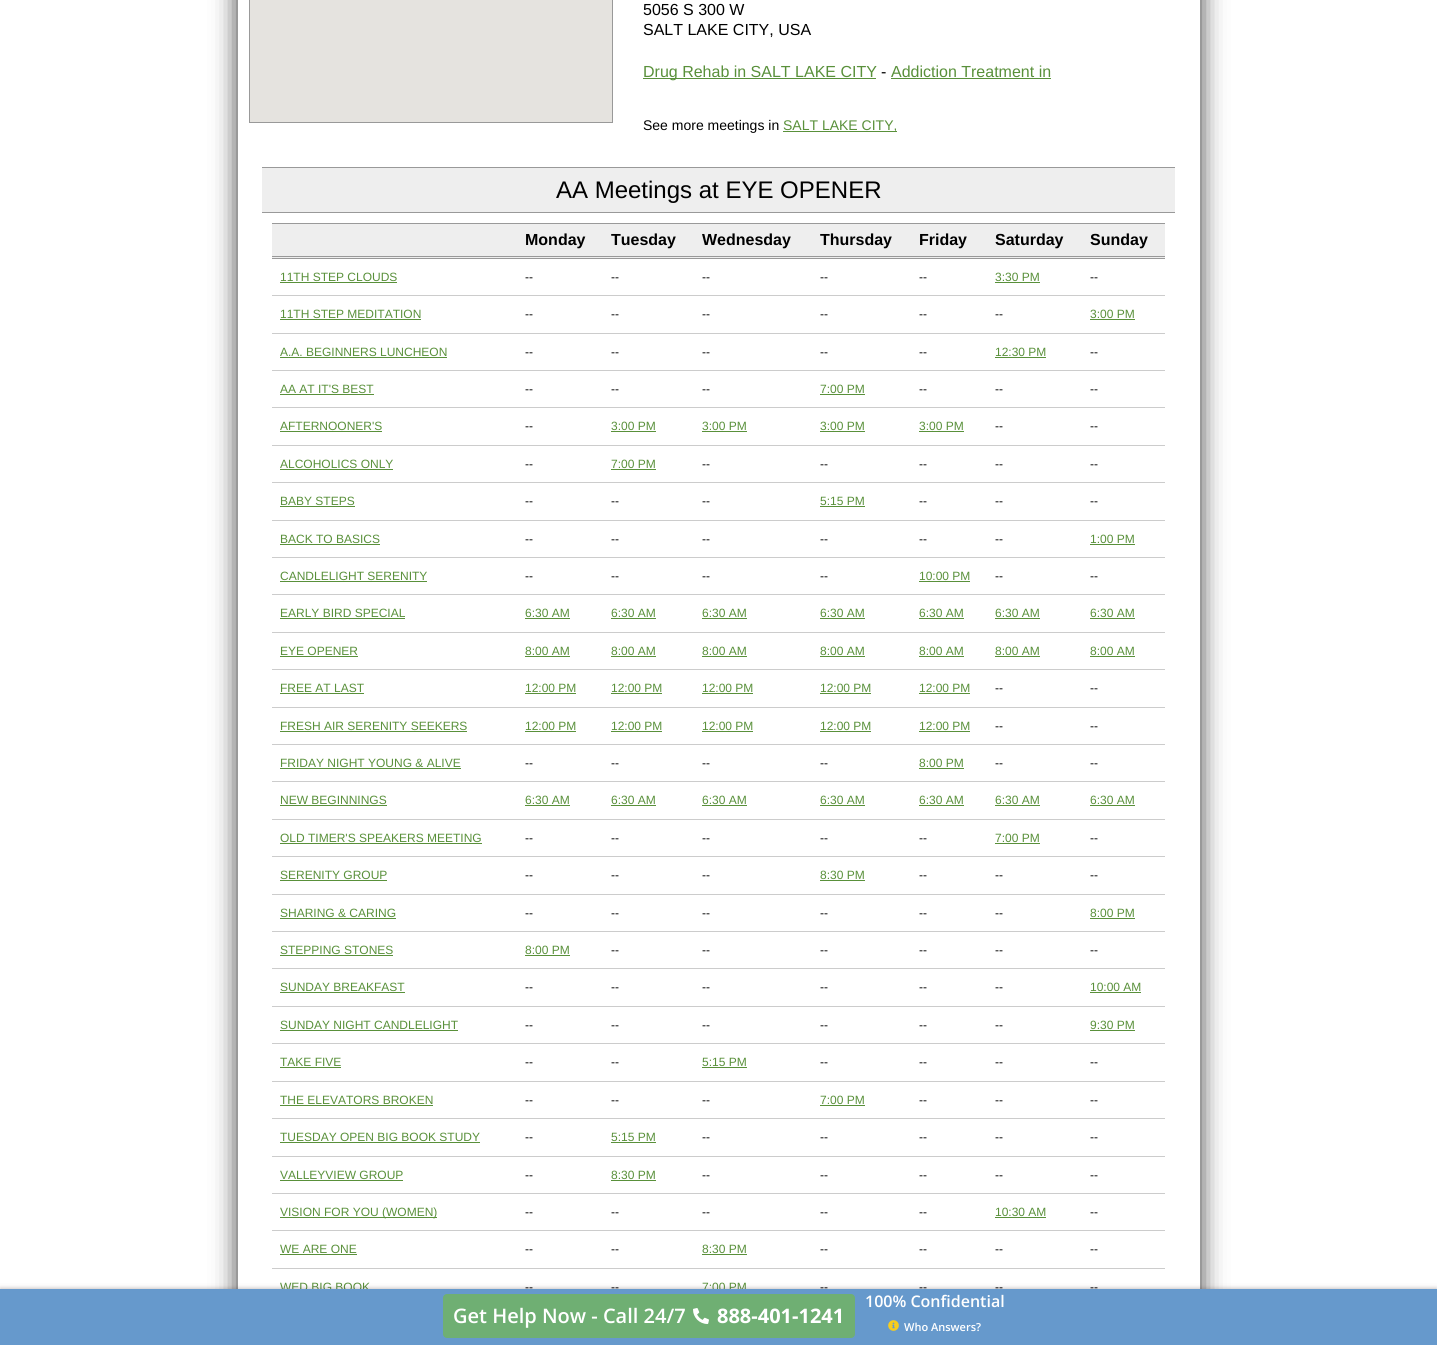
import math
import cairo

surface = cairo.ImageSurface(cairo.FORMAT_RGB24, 1437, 1345)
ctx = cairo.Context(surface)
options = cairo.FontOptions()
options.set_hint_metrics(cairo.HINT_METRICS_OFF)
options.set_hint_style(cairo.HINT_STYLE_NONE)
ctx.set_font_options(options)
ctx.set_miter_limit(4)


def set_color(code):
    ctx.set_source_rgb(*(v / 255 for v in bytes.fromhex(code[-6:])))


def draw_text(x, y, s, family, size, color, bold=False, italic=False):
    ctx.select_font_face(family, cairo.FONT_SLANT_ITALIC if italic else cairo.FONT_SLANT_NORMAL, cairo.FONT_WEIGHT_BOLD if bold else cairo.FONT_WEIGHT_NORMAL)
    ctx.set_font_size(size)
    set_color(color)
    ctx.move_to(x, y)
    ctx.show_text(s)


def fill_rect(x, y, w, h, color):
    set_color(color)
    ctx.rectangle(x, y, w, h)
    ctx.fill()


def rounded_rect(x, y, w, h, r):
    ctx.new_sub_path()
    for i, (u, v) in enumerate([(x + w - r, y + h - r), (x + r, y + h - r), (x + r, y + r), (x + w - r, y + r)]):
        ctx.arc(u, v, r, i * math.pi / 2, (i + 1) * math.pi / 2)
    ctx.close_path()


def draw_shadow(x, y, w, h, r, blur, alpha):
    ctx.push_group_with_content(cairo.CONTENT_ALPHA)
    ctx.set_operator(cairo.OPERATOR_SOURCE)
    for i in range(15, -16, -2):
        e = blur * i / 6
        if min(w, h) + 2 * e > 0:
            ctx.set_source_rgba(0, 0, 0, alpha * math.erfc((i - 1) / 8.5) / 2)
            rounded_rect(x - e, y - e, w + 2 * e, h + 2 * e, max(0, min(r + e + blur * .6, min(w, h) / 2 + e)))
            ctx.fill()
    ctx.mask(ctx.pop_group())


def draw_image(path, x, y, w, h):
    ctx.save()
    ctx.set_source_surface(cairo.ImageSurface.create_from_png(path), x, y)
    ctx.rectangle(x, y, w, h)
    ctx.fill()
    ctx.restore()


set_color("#ffffff")
ctx.paint()
ctx.save()
ctx.set_fill_rule(cairo.FILL_RULE_EVEN_ODD)
ctx.new_path()
ctx.move_to(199, 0)
ctx.line_to(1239, 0)
ctx.line_to(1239, 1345)
ctx.line_to(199, 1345)
ctx.close_path()
ctx.move_to(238, -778)
ctx.line_to(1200, -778)
ctx.line_to(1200, 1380)
ctx.line_to(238, 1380)
ctx.close_path()
ctx.clip()
set_color("#333333")
draw_shadow(238, -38, 962, 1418, 0, 12.5, 1)
ctx.restore()
ctx.rectangle(249.5, -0.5, 363, 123)
set_color("#999999")
ctx.set_line_width(1)
ctx.stroke()
fill_rect(250, 0, 362, 122, "#e5e3df")
draw_text(643, 15, "5056 S 300 W", "Liberation Sans", 16, "#000000")
draw_text(643, 35, "SALT LAKE CITY, USA", "Liberation Sans", 16, "#000000")
fill_rect(643, 78, 233, 1, "#59903a")
draw_text(643, 77, "Drug Rehab in SALT LAKE CITY", "Liberation Sans", 16, "#59903a")
draw_text(881, 77, "-", "Liberation Sans", 16, "#000000")
draw_text(891, 77, "Addiction Treatment in", "Liberation Sans", 16, "#59903a")
fill_rect(891, 78, 160, 1, "#59903a")
draw_text(643, 130, "See more meetings in", "Liberation Sans", 14, "#000000")
fill_rect(783, 131, 114, 1, "#59903a")
draw_text(783, 130, "SALT LAKE CITY,", "Liberation Sans", 14, "#59903a")
fill_rect(262, 168, 913, 44, "#eeeeee")
fill_rect(262, 167, 913, 1, "#999999")
fill_rect(262, 212, 913, 1, "#999999")
draw_text(556, 198, "AA Meetings at EYE OPENER", "Liberation Sans", 24, "#000000")
fill_rect(272, 224, 893, 34, "#eeeeee")
fill_rect(272, 223, 893, 1, "#999999")
fill_rect(272, 256, 893, 1, "#999999")
fill_rect(272, 258, 893, 1, "#999999")
draw_text(525, 245, "Monday", "Liberation Sans", 16, "#000000", bold=True)
draw_text(611, 245, "Tuesday", "Liberation Sans", 16, "#000000", bold=True)
draw_text(702, 245, "Wednesday", "Liberation Sans", 16, "#000000", bold=True)
draw_text(820, 245, "Thursday", "Liberation Sans", 16, "#000000", bold=True)
draw_text(919, 245, "Friday", "Liberation Sans", 16, "#000000", bold=True)
draw_text(995, 245, "Saturday", "Liberation Sans", 16, "#000000", bold=True)
draw_text(1090, 245, "Sunday", "Liberation Sans", 16, "#000000", bold=True)
fill_rect(272, 295, 893, 1, "#cccccc")
draw_text(280, 281, "11TH STEP CLOUDS", "Liberation Sans", 12, "#59903a")
fill_rect(280, 282, 117, 1, "#59903a")
draw_text(525, 281, "--", "Liberation Sans", 12, "#000000")
draw_text(611, 281, "--", "Liberation Sans", 12, "#000000")
draw_text(702, 281, "--", "Liberation Sans", 12, "#000000")
draw_text(820, 281, "--", "Liberation Sans", 12, "#000000")
draw_text(919, 281, "--", "Liberation Sans", 12, "#000000")
draw_text(995, 281, "3:30 PM", "Liberation Sans", 12, "#59903a")
fill_rect(995, 282, 45, 1, "#59903a")
draw_text(1090, 281, "--", "Liberation Sans", 12, "#000000")
fill_rect(272, 333, 893, 1, "#cccccc")
draw_text(280, 318, "11TH STEP MEDITATION", "Liberation Sans", 12, "#59903a")
fill_rect(280, 319, 141, 1, "#59903a")
draw_text(525, 318, "--", "Liberation Sans", 12, "#000000")
draw_text(611, 318, "--", "Liberation Sans", 12, "#000000")
draw_text(702, 318, "--", "Liberation Sans", 12, "#000000")
draw_text(820, 318, "--", "Liberation Sans", 12, "#000000")
draw_text(919, 318, "--", "Liberation Sans", 12, "#000000")
draw_text(995, 318, "--", "Liberation Sans", 12, "#000000")
draw_text(1090, 318, "3:00 PM", "Liberation Sans", 12, "#59903a")
fill_rect(1090, 319, 45, 1, "#59903a")
fill_rect(272, 370, 893, 1, "#cccccc")
draw_text(280, 356, "A.A. BEGINNERS LUNCHEON", "Liberation Sans", 12, "#59903a")
fill_rect(280, 357, 167, 1, "#59903a")
draw_text(525, 356, "--", "Liberation Sans", 12, "#000000")
draw_text(611, 356, "--", "Liberation Sans", 12, "#000000")
draw_text(702, 356, "--", "Liberation Sans", 12, "#000000")
draw_text(820, 356, "--", "Liberation Sans", 12, "#000000")
draw_text(919, 356, "--", "Liberation Sans", 12, "#000000")
draw_text(995, 356, "12:30 PM", "Liberation Sans", 12, "#59903a")
fill_rect(995, 357, 51, 1, "#59903a")
draw_text(1090, 356, "--", "Liberation Sans", 12, "#000000")
fill_rect(272, 407, 893, 1, "#cccccc")
draw_text(280, 393, "AA AT IT'S BEST", "Liberation Sans", 12, "#59903a")
fill_rect(280, 394, 94, 1, "#59903a")
draw_text(525, 393, "--", "Liberation Sans", 12, "#000000")
draw_text(611, 393, "--", "Liberation Sans", 12, "#000000")
draw_text(702, 393, "--", "Liberation Sans", 12, "#000000")
draw_text(820, 393, "7:00 PM", "Liberation Sans", 12, "#59903a")
fill_rect(820, 394, 45, 1, "#59903a")
draw_text(919, 393, "--", "Liberation Sans", 12, "#000000")
draw_text(995, 393, "--", "Liberation Sans", 12, "#000000")
draw_text(1090, 393, "--", "Liberation Sans", 12, "#000000")
fill_rect(272, 445, 893, 1, "#cccccc")
draw_text(280, 430, "AFTERNOONER'S", "Liberation Sans", 12, "#59903a")
fill_rect(280, 431, 102, 1, "#59903a")
draw_text(525, 430, "--", "Liberation Sans", 12, "#000000")
draw_text(611, 430, "3:00 PM", "Liberation Sans", 12, "#59903a")
fill_rect(611, 431, 45, 1, "#59903a")
draw_text(702, 430, "3:00 PM", "Liberation Sans", 12, "#59903a")
fill_rect(702, 431, 45, 1, "#59903a")
draw_text(820, 430, "3:00 PM", "Liberation Sans", 12, "#59903a")
fill_rect(820, 431, 45, 1, "#59903a")
draw_text(919, 430, "3:00 PM", "Liberation Sans", 12, "#59903a")
fill_rect(919, 431, 45, 1, "#59903a")
draw_text(995, 430, "--", "Liberation Sans", 12, "#000000")
draw_text(1090, 430, "--", "Liberation Sans", 12, "#000000")
fill_rect(272, 482, 893, 1, "#cccccc")
draw_text(280, 468, "ALCOHOLICS ONLY", "Liberation Sans", 12, "#59903a")
fill_rect(280, 469, 113, 1, "#59903a")
draw_text(525, 468, "--", "Liberation Sans", 12, "#000000")
draw_text(611, 468, "7:00 PM", "Liberation Sans", 12, "#59903a")
fill_rect(611, 469, 45, 1, "#59903a")
draw_text(702, 468, "--", "Liberation Sans", 12, "#000000")
draw_text(820, 468, "--", "Liberation Sans", 12, "#000000")
draw_text(919, 468, "--", "Liberation Sans", 12, "#000000")
draw_text(995, 468, "--", "Liberation Sans", 12, "#000000")
draw_text(1090, 468, "--", "Liberation Sans", 12, "#000000")
fill_rect(272, 520, 893, 1, "#cccccc")
draw_text(280, 505, "BABY STEPS", "Liberation Sans", 12, "#59903a")
fill_rect(280, 506, 75, 1, "#59903a")
draw_text(525, 505, "--", "Liberation Sans", 12, "#000000")
draw_text(611, 505, "--", "Liberation Sans", 12, "#000000")
draw_text(702, 505, "--", "Liberation Sans", 12, "#000000")
draw_text(820, 505, "5:15 PM", "Liberation Sans", 12, "#59903a")
fill_rect(820, 506, 45, 1, "#59903a")
draw_text(919, 505, "--", "Liberation Sans", 12, "#000000")
draw_text(995, 505, "--", "Liberation Sans", 12, "#000000")
draw_text(1090, 505, "--", "Liberation Sans", 12, "#000000")
fill_rect(272, 557, 893, 1, "#cccccc")
draw_text(280, 543, "BACK TO BASICS", "Liberation Sans", 12, "#59903a")
fill_rect(280, 544, 100, 1, "#59903a")
draw_text(525, 543, "--", "Liberation Sans", 12, "#000000")
draw_text(611, 543, "--", "Liberation Sans", 12, "#000000")
draw_text(702, 543, "--", "Liberation Sans", 12, "#000000")
draw_text(820, 543, "--", "Liberation Sans", 12, "#000000")
draw_text(919, 543, "--", "Liberation Sans", 12, "#000000")
draw_text(995, 543, "--", "Liberation Sans", 12, "#000000")
draw_text(1090, 543, "1:00 PM", "Liberation Sans", 12, "#59903a")
fill_rect(1090, 544, 45, 1, "#59903a")
fill_rect(272, 594, 893, 1, "#cccccc")
draw_text(280, 580, "CANDLELIGHT SERENITY", "Liberation Sans", 12, "#59903a")
fill_rect(280, 581, 147, 1, "#59903a")
draw_text(525, 580, "--", "Liberation Sans", 12, "#000000")
draw_text(611, 580, "--", "Liberation Sans", 12, "#000000")
draw_text(702, 580, "--", "Liberation Sans", 12, "#000000")
draw_text(820, 580, "--", "Liberation Sans", 12, "#000000")
draw_text(919, 580, "10:00 PM", "Liberation Sans", 12, "#59903a")
fill_rect(919, 581, 51, 1, "#59903a")
draw_text(995, 580, "--", "Liberation Sans", 12, "#000000")
draw_text(1090, 580, "--", "Liberation Sans", 12, "#000000")
fill_rect(272, 632, 893, 1, "#cccccc")
draw_text(280, 617, "EARLY BIRD SPECIAL", "Liberation Sans", 12, "#59903a")
fill_rect(280, 618, 125, 1, "#59903a")
draw_text(525, 617, "6:30 AM", "Liberation Sans", 12, "#59903a")
fill_rect(525, 618, 45, 1, "#59903a")
draw_text(611, 617, "6:30 AM", "Liberation Sans", 12, "#59903a")
fill_rect(611, 618, 45, 1, "#59903a")
draw_text(702, 617, "6:30 AM", "Liberation Sans", 12, "#59903a")
fill_rect(702, 618, 45, 1, "#59903a")
draw_text(820, 617, "6:30 AM", "Liberation Sans", 12, "#59903a")
fill_rect(820, 618, 45, 1, "#59903a")
draw_text(919, 617, "6:30 AM", "Liberation Sans", 12, "#59903a")
fill_rect(919, 618, 45, 1, "#59903a")
draw_text(995, 617, "6:30 AM", "Liberation Sans", 12, "#59903a")
fill_rect(995, 618, 45, 1, "#59903a")
draw_text(1090, 617, "6:30 AM", "Liberation Sans", 12, "#59903a")
fill_rect(1090, 618, 45, 1, "#59903a")
fill_rect(272, 669, 893, 1, "#cccccc")
draw_text(280, 655, "EYE OPENER", "Liberation Sans", 12, "#59903a")
fill_rect(280, 656, 78, 1, "#59903a")
draw_text(525, 655, "8:00 AM", "Liberation Sans", 12, "#59903a")
fill_rect(525, 656, 45, 1, "#59903a")
draw_text(611, 655, "8:00 AM", "Liberation Sans", 12, "#59903a")
fill_rect(611, 656, 45, 1, "#59903a")
draw_text(702, 655, "8:00 AM", "Liberation Sans", 12, "#59903a")
fill_rect(702, 656, 45, 1, "#59903a")
draw_text(820, 655, "8:00 AM", "Liberation Sans", 12, "#59903a")
fill_rect(820, 656, 45, 1, "#59903a")
draw_text(919, 655, "8:00 AM", "Liberation Sans", 12, "#59903a")
fill_rect(919, 656, 45, 1, "#59903a")
draw_text(995, 655, "8:00 AM", "Liberation Sans", 12, "#59903a")
fill_rect(995, 656, 45, 1, "#59903a")
draw_text(1090, 655, "8:00 AM", "Liberation Sans", 12, "#59903a")
fill_rect(1090, 656, 45, 1, "#59903a")
fill_rect(272, 707, 893, 1, "#cccccc")
draw_text(280, 692, "FREE AT LAST", "Liberation Sans", 12, "#59903a")
fill_rect(280, 693, 84, 1, "#59903a")
draw_text(525, 692, "12:00 PM", "Liberation Sans", 12, "#59903a")
fill_rect(525, 693, 51, 1, "#59903a")
draw_text(611, 692, "12:00 PM", "Liberation Sans", 12, "#59903a")
fill_rect(611, 693, 51, 1, "#59903a")
draw_text(702, 692, "12:00 PM", "Liberation Sans", 12, "#59903a")
fill_rect(702, 693, 51, 1, "#59903a")
draw_text(820, 692, "12:00 PM", "Liberation Sans", 12, "#59903a")
fill_rect(820, 693, 51, 1, "#59903a")
draw_text(919, 692, "12:00 PM", "Liberation Sans", 12, "#59903a")
fill_rect(919, 693, 51, 1, "#59903a")
draw_text(995, 692, "--", "Liberation Sans", 12, "#000000")
draw_text(1090, 692, "--", "Liberation Sans", 12, "#000000")
fill_rect(272, 744, 893, 1, "#cccccc")
draw_text(280, 730, "FRESH AIR SERENITY SEEKERS", "Liberation Sans", 12, "#59903a")
fill_rect(280, 731, 187, 1, "#59903a")
draw_text(525, 730, "12:00 PM", "Liberation Sans", 12, "#59903a")
fill_rect(525, 731, 51, 1, "#59903a")
draw_text(611, 730, "12:00 PM", "Liberation Sans", 12, "#59903a")
fill_rect(611, 731, 51, 1, "#59903a")
draw_text(702, 730, "12:00 PM", "Liberation Sans", 12, "#59903a")
fill_rect(702, 731, 51, 1, "#59903a")
draw_text(820, 730, "12:00 PM", "Liberation Sans", 12, "#59903a")
fill_rect(820, 731, 51, 1, "#59903a")
draw_text(919, 730, "12:00 PM", "Liberation Sans", 12, "#59903a")
fill_rect(919, 731, 51, 1, "#59903a")
draw_text(995, 730, "--", "Liberation Sans", 12, "#000000")
draw_text(1090, 730, "--", "Liberation Sans", 12, "#000000")
fill_rect(272, 781, 893, 1, "#cccccc")
draw_text(280, 767, "FRIDAY NIGHT YOUNG & ALIVE", "Liberation Sans", 12, "#59903a")
fill_rect(280, 768, 181, 1, "#59903a")
draw_text(525, 767, "--", "Liberation Sans", 12, "#000000")
draw_text(611, 767, "--", "Liberation Sans", 12, "#000000")
draw_text(702, 767, "--", "Liberation Sans", 12, "#000000")
draw_text(820, 767, "--", "Liberation Sans", 12, "#000000")
draw_text(919, 767, "8:00 PM", "Liberation Sans", 12, "#59903a")
fill_rect(919, 768, 45, 1, "#59903a")
draw_text(995, 767, "--", "Liberation Sans", 12, "#000000")
draw_text(1090, 767, "--", "Liberation Sans", 12, "#000000")
fill_rect(272, 819, 893, 1, "#cccccc")
draw_text(280, 804, "NEW BEGINNINGS", "Liberation Sans", 12, "#59903a")
fill_rect(280, 805, 107, 1, "#59903a")
draw_text(525, 804, "6:30 AM", "Liberation Sans", 12, "#59903a")
fill_rect(525, 805, 45, 1, "#59903a")
draw_text(611, 804, "6:30 AM", "Liberation Sans", 12, "#59903a")
fill_rect(611, 805, 45, 1, "#59903a")
draw_text(702, 804, "6:30 AM", "Liberation Sans", 12, "#59903a")
fill_rect(702, 805, 45, 1, "#59903a")
draw_text(820, 804, "6:30 AM", "Liberation Sans", 12, "#59903a")
fill_rect(820, 805, 45, 1, "#59903a")
draw_text(919, 804, "6:30 AM", "Liberation Sans", 12, "#59903a")
fill_rect(919, 805, 45, 1, "#59903a")
draw_text(995, 804, "6:30 AM", "Liberation Sans", 12, "#59903a")
fill_rect(995, 805, 45, 1, "#59903a")
draw_text(1090, 804, "6:30 AM", "Liberation Sans", 12, "#59903a")
fill_rect(1090, 805, 45, 1, "#59903a")
fill_rect(272, 856, 893, 1, "#cccccc")
draw_text(280, 842, "OLD TIMER'S SPEAKERS MEETING", "Liberation Sans", 12, "#59903a")
fill_rect(280, 843, 202, 1, "#59903a")
draw_text(525, 842, "--", "Liberation Sans", 12, "#000000")
draw_text(611, 842, "--", "Liberation Sans", 12, "#000000")
draw_text(702, 842, "--", "Liberation Sans", 12, "#000000")
draw_text(820, 842, "--", "Liberation Sans", 12, "#000000")
draw_text(919, 842, "--", "Liberation Sans", 12, "#000000")
draw_text(995, 842, "7:00 PM", "Liberation Sans", 12, "#59903a")
fill_rect(995, 843, 45, 1, "#59903a")
draw_text(1090, 842, "--", "Liberation Sans", 12, "#000000")
fill_rect(272, 894, 893, 1, "#cccccc")
draw_text(280, 879, "SERENITY GROUP", "Liberation Sans", 12, "#59903a")
fill_rect(280, 880, 107, 1, "#59903a")
draw_text(525, 879, "--", "Liberation Sans", 12, "#000000")
draw_text(611, 879, "--", "Liberation Sans", 12, "#000000")
draw_text(702, 879, "--", "Liberation Sans", 12, "#000000")
draw_text(820, 879, "8:30 PM", "Liberation Sans", 12, "#59903a")
fill_rect(820, 880, 45, 1, "#59903a")
draw_text(919, 879, "--", "Liberation Sans", 12, "#000000")
draw_text(995, 879, "--", "Liberation Sans", 12, "#000000")
draw_text(1090, 879, "--", "Liberation Sans", 12, "#000000")
fill_rect(272, 931, 893, 1, "#cccccc")
draw_text(280, 917, "SHARING & CARING", "Liberation Sans", 12, "#59903a")
fill_rect(280, 918, 116, 1, "#59903a")
draw_text(525, 917, "--", "Liberation Sans", 12, "#000000")
draw_text(611, 917, "--", "Liberation Sans", 12, "#000000")
draw_text(702, 917, "--", "Liberation Sans", 12, "#000000")
draw_text(820, 917, "--", "Liberation Sans", 12, "#000000")
draw_text(919, 917, "--", "Liberation Sans", 12, "#000000")
draw_text(995, 917, "--", "Liberation Sans", 12, "#000000")
draw_text(1090, 917, "8:00 PM", "Liberation Sans", 12, "#59903a")
fill_rect(1090, 918, 45, 1, "#59903a")
fill_rect(272, 968, 893, 1, "#cccccc")
draw_text(280, 954, "STEPPING STONES", "Liberation Sans", 12, "#59903a")
fill_rect(280, 955, 113, 1, "#59903a")
draw_text(525, 954, "8:00 PM", "Liberation Sans", 12, "#59903a")
fill_rect(525, 955, 45, 1, "#59903a")
draw_text(611, 954, "--", "Liberation Sans", 12, "#000000")
draw_text(702, 954, "--", "Liberation Sans", 12, "#000000")
draw_text(820, 954, "--", "Liberation Sans", 12, "#000000")
draw_text(919, 954, "--", "Liberation Sans", 12, "#000000")
draw_text(995, 954, "--", "Liberation Sans", 12, "#000000")
draw_text(1090, 954, "--", "Liberation Sans", 12, "#000000")
fill_rect(272, 1006, 893, 1, "#cccccc")
draw_text(280, 991, "SUNDAY BREAKFAST", "Liberation Sans", 12, "#59903a")
fill_rect(280, 992, 125, 1, "#59903a")
draw_text(525, 991, "--", "Liberation Sans", 12, "#000000")
draw_text(611, 991, "--", "Liberation Sans", 12, "#000000")
draw_text(702, 991, "--", "Liberation Sans", 12, "#000000")
draw_text(820, 991, "--", "Liberation Sans", 12, "#000000")
draw_text(919, 991, "--", "Liberation Sans", 12, "#000000")
draw_text(995, 991, "--", "Liberation Sans", 12, "#000000")
draw_text(1090, 991, "10:00 AM", "Liberation Sans", 12, "#59903a")
fill_rect(1090, 992, 51, 1, "#59903a")
fill_rect(272, 1043, 893, 1, "#cccccc")
draw_text(280, 1029, "SUNDAY NIGHT CANDLELIGHT", "Liberation Sans", 12, "#59903a")
fill_rect(280, 1030, 178, 1, "#59903a")
draw_text(525, 1029, "--", "Liberation Sans", 12, "#000000")
draw_text(611, 1029, "--", "Liberation Sans", 12, "#000000")
draw_text(702, 1029, "--", "Liberation Sans", 12, "#000000")
draw_text(820, 1029, "--", "Liberation Sans", 12, "#000000")
draw_text(919, 1029, "--", "Liberation Sans", 12, "#000000")
draw_text(995, 1029, "--", "Liberation Sans", 12, "#000000")
draw_text(1090, 1029, "9:30 PM", "Liberation Sans", 12, "#59903a")
fill_rect(1090, 1030, 45, 1, "#59903a")
fill_rect(272, 1081, 893, 1, "#cccccc")
draw_text(280, 1066, "TAKE FIVE", "Liberation Sans", 12, "#59903a")
fill_rect(280, 1067, 61, 1, "#59903a")
draw_text(525, 1066, "--", "Liberation Sans", 12, "#000000")
draw_text(611, 1066, "--", "Liberation Sans", 12, "#000000")
draw_text(702, 1066, "5:15 PM", "Liberation Sans", 12, "#59903a")
fill_rect(702, 1067, 45, 1, "#59903a")
draw_text(820, 1066, "--", "Liberation Sans", 12, "#000000")
draw_text(919, 1066, "--", "Liberation Sans", 12, "#000000")
draw_text(995, 1066, "--", "Liberation Sans", 12, "#000000")
draw_text(1090, 1066, "--", "Liberation Sans", 12, "#000000")
fill_rect(272, 1118, 893, 1, "#cccccc")
draw_text(280, 1104, "THE ELEVATORS BROKEN", "Liberation Sans", 12, "#59903a")
fill_rect(280, 1105, 153, 1, "#59903a")
draw_text(525, 1104, "--", "Liberation Sans", 12, "#000000")
draw_text(611, 1104, "--", "Liberation Sans", 12, "#000000")
draw_text(702, 1104, "--", "Liberation Sans", 12, "#000000")
draw_text(820, 1104, "7:00 PM", "Liberation Sans", 12, "#59903a")
fill_rect(820, 1105, 45, 1, "#59903a")
draw_text(919, 1104, "--", "Liberation Sans", 12, "#000000")
draw_text(995, 1104, "--", "Liberation Sans", 12, "#000000")
draw_text(1090, 1104, "--", "Liberation Sans", 12, "#000000")
fill_rect(272, 1156, 893, 1, "#cccccc")
draw_text(280, 1141, "TUESDAY OPEN BIG BOOK STUDY", "Liberation Sans", 12, "#59903a")
fill_rect(280, 1142, 200, 1, "#59903a")
draw_text(525, 1141, "--", "Liberation Sans", 12, "#000000")
draw_text(611, 1141, "5:15 PM", "Liberation Sans", 12, "#59903a")
fill_rect(611, 1142, 45, 1, "#59903a")
draw_text(702, 1141, "--", "Liberation Sans", 12, "#000000")
draw_text(820, 1141, "--", "Liberation Sans", 12, "#000000")
draw_text(919, 1141, "--", "Liberation Sans", 12, "#000000")
draw_text(995, 1141, "--", "Liberation Sans", 12, "#000000")
draw_text(1090, 1141, "--", "Liberation Sans", 12, "#000000")
fill_rect(272, 1193, 893, 1, "#cccccc")
draw_text(280, 1179, "VALLEYVIEW GROUP", "Liberation Sans", 12, "#59903a")
fill_rect(280, 1180, 123, 1, "#59903a")
draw_text(525, 1179, "--", "Liberation Sans", 12, "#000000")
draw_text(611, 1179, "8:30 PM", "Liberation Sans", 12, "#59903a")
fill_rect(611, 1180, 45, 1, "#59903a")
draw_text(702, 1179, "--", "Liberation Sans", 12, "#000000")
draw_text(820, 1179, "--", "Liberation Sans", 12, "#000000")
draw_text(919, 1179, "--", "Liberation Sans", 12, "#000000")
draw_text(995, 1179, "--", "Liberation Sans", 12, "#000000")
draw_text(1090, 1179, "--", "Liberation Sans", 12, "#000000")
fill_rect(272, 1230, 893, 1, "#cccccc")
fill_rect(280, 1217, 157, 1, "#59903a")
draw_text(280, 1216, "VISION FOR YOU (WOMEN)", "Liberation Sans", 12, "#59903a")
draw_text(525, 1216, "--", "Liberation Sans", 12, "#000000")
draw_text(611, 1216, "--", "Liberation Sans", 12, "#000000")
draw_text(702, 1216, "--", "Liberation Sans", 12, "#000000")
draw_text(820, 1216, "--", "Liberation Sans", 12, "#000000")
draw_text(919, 1216, "--", "Liberation Sans", 12, "#000000")
draw_text(995, 1216, "10:30 AM", "Liberation Sans", 12, "#59903a")
fill_rect(995, 1217, 51, 1, "#59903a")
draw_text(1090, 1216, "--", "Liberation Sans", 12, "#000000")
fill_rect(272, 1268, 893, 1, "#cccccc")
draw_text(280, 1253, "WE ARE ONE", "Liberation Sans", 12, "#59903a")
fill_rect(280, 1254, 77, 1, "#59903a")
draw_text(525, 1253, "--", "Liberation Sans", 12, "#000000")
draw_text(611, 1253, "--", "Liberation Sans", 12, "#000000")
draw_text(702, 1253, "8:30 PM", "Liberation Sans", 12, "#59903a")
fill_rect(702, 1254, 45, 1, "#59903a")
draw_text(820, 1253, "--", "Liberation Sans", 12, "#000000")
draw_text(919, 1253, "--", "Liberation Sans", 12, "#000000")
draw_text(995, 1253, "--", "Liberation Sans", 12, "#000000")
draw_text(1090, 1253, "--", "Liberation Sans", 12, "#000000")
draw_text(280, 1291, "WED BIG BOOK", "Liberation Sans", 12, "#59903a")
draw_text(525, 1291, "--", "Liberation Sans", 12, "#000000")
draw_text(611, 1291, "--", "Liberation Sans", 12, "#000000")
draw_text(702, 1291, "7:00 PM", "Liberation Sans", 12, "#59903a")
draw_text(820, 1291, "--", "Liberation Sans", 12, "#000000")
draw_text(919, 1291, "--", "Liberation Sans", 12, "#000000")
draw_text(995, 1291, "--", "Liberation Sans", 12, "#000000")
draw_text(1090, 1291, "--", "Liberation Sans", 12, "#000000")
set_color("#3b2727")
draw_shadow(0, 1289, 1437, 56, 0, 2.5, 0.4)
fill_rect(0, 1289, 1437, 56, "#6699cc")
set_color("#6faf73")
rounded_rect(443, 1294, 412, 44, 4)
ctx.fill()
draw_text(453, 1323, "Get Help Now - Call 24/7", "Open Sans SemiBold", 20, "#ffffff")
draw_image("assets/img1.png", 693, 1308, 16, 16)
draw_text(717, 1323, "888-401-1241", "Open Sans", 20, "#ffffff", bold=True)
draw_text(865, 1307, "100% Confidential", "Open Sans SemiBold", 16, "#ffffff")
draw_image("assets/img2.png", 888, 1320, 11, 11)
draw_text(904, 1331, "Who Answers?", "Open Sans SemiBold", 11, "#ffffff")
surface.write_to_png("output.png")
